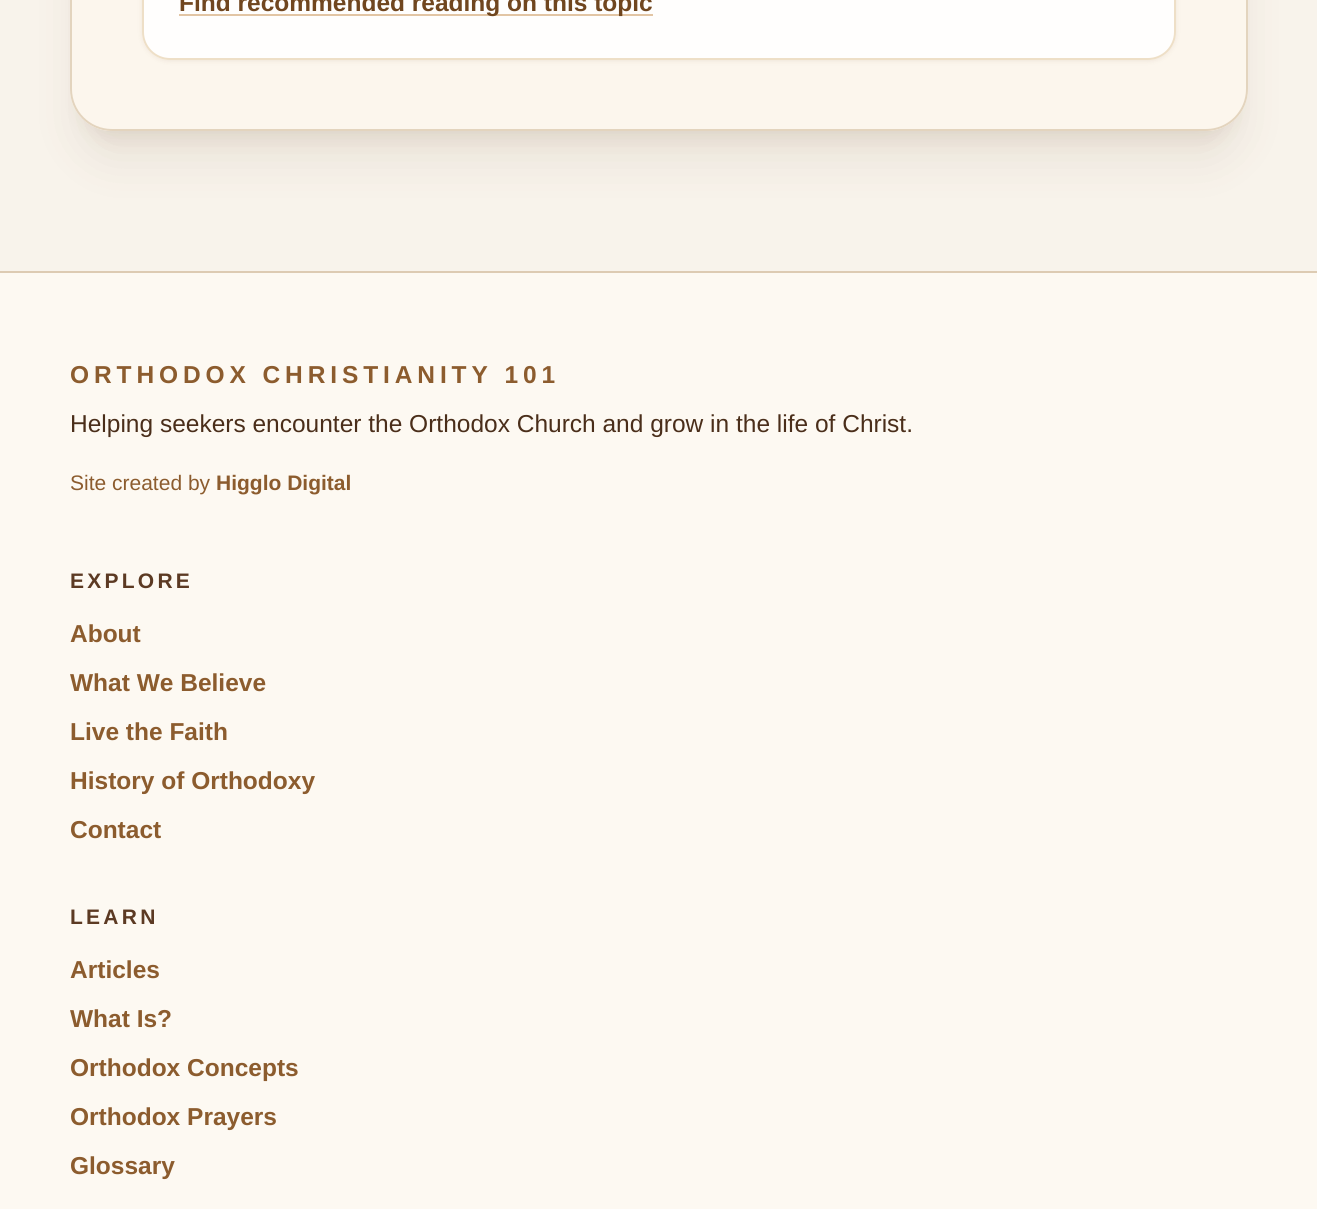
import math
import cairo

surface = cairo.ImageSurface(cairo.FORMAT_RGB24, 1317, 1209)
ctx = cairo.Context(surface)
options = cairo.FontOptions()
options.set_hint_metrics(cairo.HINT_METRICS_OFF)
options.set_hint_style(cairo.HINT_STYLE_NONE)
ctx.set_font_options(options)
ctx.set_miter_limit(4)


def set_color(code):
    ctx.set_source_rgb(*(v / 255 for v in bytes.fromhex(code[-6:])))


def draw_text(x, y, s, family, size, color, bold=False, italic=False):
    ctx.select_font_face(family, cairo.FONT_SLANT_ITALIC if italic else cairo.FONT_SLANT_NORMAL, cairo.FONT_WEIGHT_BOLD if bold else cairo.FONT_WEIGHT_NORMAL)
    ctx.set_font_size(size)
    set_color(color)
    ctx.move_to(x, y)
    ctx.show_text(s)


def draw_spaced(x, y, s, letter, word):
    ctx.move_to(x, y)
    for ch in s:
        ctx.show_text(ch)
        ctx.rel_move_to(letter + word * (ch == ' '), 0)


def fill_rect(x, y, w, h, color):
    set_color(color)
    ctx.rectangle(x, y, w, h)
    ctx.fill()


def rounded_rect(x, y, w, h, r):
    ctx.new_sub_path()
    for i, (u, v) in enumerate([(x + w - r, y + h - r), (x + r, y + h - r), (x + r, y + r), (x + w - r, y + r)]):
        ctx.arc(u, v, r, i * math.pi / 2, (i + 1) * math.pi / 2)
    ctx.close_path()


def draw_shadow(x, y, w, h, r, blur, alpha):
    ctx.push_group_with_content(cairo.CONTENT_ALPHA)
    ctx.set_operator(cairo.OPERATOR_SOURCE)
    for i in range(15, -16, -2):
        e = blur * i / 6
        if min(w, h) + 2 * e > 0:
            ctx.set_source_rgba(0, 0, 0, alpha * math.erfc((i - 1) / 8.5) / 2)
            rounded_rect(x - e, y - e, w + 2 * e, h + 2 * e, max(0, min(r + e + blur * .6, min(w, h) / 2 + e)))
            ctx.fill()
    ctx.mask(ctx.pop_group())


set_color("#fdf9f2")
ctx.paint()
fill_rect(0, 0, 1317, 271, "#f8f3eb")
ctx.save()
ctx.set_fill_rule(cairo.FILL_RULE_EVEN_ODD)
ctx.new_path()
ctx.move_to(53, 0)
ctx.line_to(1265, 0)
ctx.line_to(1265, 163)
ctx.line_to(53, 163)
ctx.close_path()
ctx.move_to(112, -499)
ctx.line_to(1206, -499)
ctx.curve_to(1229, -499, 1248, -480, 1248, -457)
ctx.line_to(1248, 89)
ctx.curve_to(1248, 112, 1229, 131, 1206, 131)
ctx.line_to(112, 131)
ctx.curve_to(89, 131, 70, 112, 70, 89)
ctx.line_to(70, -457)
ctx.curve_to(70, -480, 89, -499, 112, -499)
ctx.close_path()
ctx.clip()
set_color("#5c3a1d")
draw_shadow(81, -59, 1156, 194, 32, 9, 0.1)
ctx.restore()
ctx.save()
ctx.set_fill_rule(cairo.FILL_RULE_EVEN_ODD)
ctx.new_path()
ctx.move_to(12, 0)
ctx.line_to(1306, 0)
ctx.line_to(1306, 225)
ctx.line_to(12, 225)
ctx.close_path()
ctx.move_to(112, -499)
ctx.line_to(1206, -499)
ctx.curve_to(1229, -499, 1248, -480, 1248, -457)
ctx.line_to(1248, 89)
ctx.curve_to(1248, 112, 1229, 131, 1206, 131)
ctx.line_to(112, 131)
ctx.curve_to(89, 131, 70, 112, 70, 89)
ctx.line_to(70, -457)
ctx.curve_to(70, -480, 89, -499, 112, -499)
ctx.close_path()
ctx.clip()
set_color("#5c3a1d")
draw_shadow(79, -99, 1160, 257, 33, 22, 0.1)
ctx.restore()
ctx.set_source_rgba(0.992, 0.965, 0.929, 0.9)
rounded_rect(70, -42, 1178, 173, 42)
ctx.fill()
rounded_rect(71, -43, 1176, 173, 41)
ctx.set_source_rgba(0.867, 0.796, 0.702, 0.8)
ctx.stroke()
ctx.save()
ctx.set_fill_rule(cairo.FILL_RULE_EVEN_ODD)
ctx.new_path()
ctx.move_to(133, 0)
ctx.line_to(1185, 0)
ctx.line_to(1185, 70)
ctx.line_to(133, 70)
ctx.close_path()
ctx.move_to(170, -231)
ctx.line_to(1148, -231)
ctx.curve_to(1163.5, -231, 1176, -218.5, 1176, -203)
ctx.line_to(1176, 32)
ctx.curve_to(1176, 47.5, 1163.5, 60, 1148, 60)
ctx.line_to(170, 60)
ctx.curve_to(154.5, 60, 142, 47.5, 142, 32)
ctx.line_to(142, -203)
ctx.curve_to(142, -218.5, 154.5, -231, 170, -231)
ctx.close_path()
ctx.clip()
set_color("#70461f")
draw_shadow(142, -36, 1034, 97, 28, 2.5, 0.1)
ctx.restore()
ctx.set_source_rgba(1, 1, 1, 0.9)
rounded_rect(143, -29, 1032, 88, 27)
ctx.fill_preserve()
set_color("#eedfc7")
ctx.stroke()
fill_rect(179, 14, 474, 2, "#e2c5a4")
draw_text(179, 11, "Find recommended reading on this topic", "Liberation Sans", 24.5, "#70461f", bold=True)
fill_rect(0, 271, 1317, 2, "#ddcbb3")
set_color("#8c5c2e")
draw_spaced(70, 383, "ORTHODOX CHRISTIANITY 101", 4.9, 0)
draw_text(70, 432, "Helping seekers encounter the Orthodox Church and grow in the life of Christ.", "Liberation Sans", 24.5, "#4a2e1a")
draw_text(70, 490, "Site created by", "Liberation Sans", 21, "#8c5c2e")
draw_text(216, 490, "Higglo Digital", "Liberation Sans", 21, "#8c5c2e", bold=True)
set_color("#5c3a23")
draw_spaced(70, 588, "EXPLORE", 3.25, 0)
draw_text(70, 642, "About", "Liberation Sans", 24.5, "#8c5c2e", bold=True)
draw_text(70, 691, "What We Believe", "Liberation Sans", 24.5, "#8c5c2e", bold=True)
draw_text(70, 740, "Live the Faith", "Liberation Sans", 24.5, "#8c5c2e", bold=True)
draw_text(70, 789, "History of Orthodoxy", "Liberation Sans", 24.5, "#8c5c2e", bold=True)
draw_text(70, 838, "Contact", "Liberation Sans", 24.5, "#8c5c2e", bold=True)
ctx.set_font_size(21)
set_color("#5c3a23")
draw_spaced(70, 924, "LEARN", 3.25, 0)
draw_text(70, 978, "Articles", "Liberation Sans", 24.5, "#8c5c2e", bold=True)
draw_text(70, 1027, "What Is?", "Liberation Sans", 24.5, "#8c5c2e", bold=True)
draw_text(70, 1076, "Orthodox Concepts", "Liberation Sans", 24.5, "#8c5c2e", bold=True)
draw_text(70, 1125, "Orthodox Prayers", "Liberation Sans", 24.5, "#8c5c2e", bold=True)
draw_text(70, 1174, "Glossary", "Liberation Sans", 24.5, "#8c5c2e", bold=True)
surface.write_to_png("output.png")
